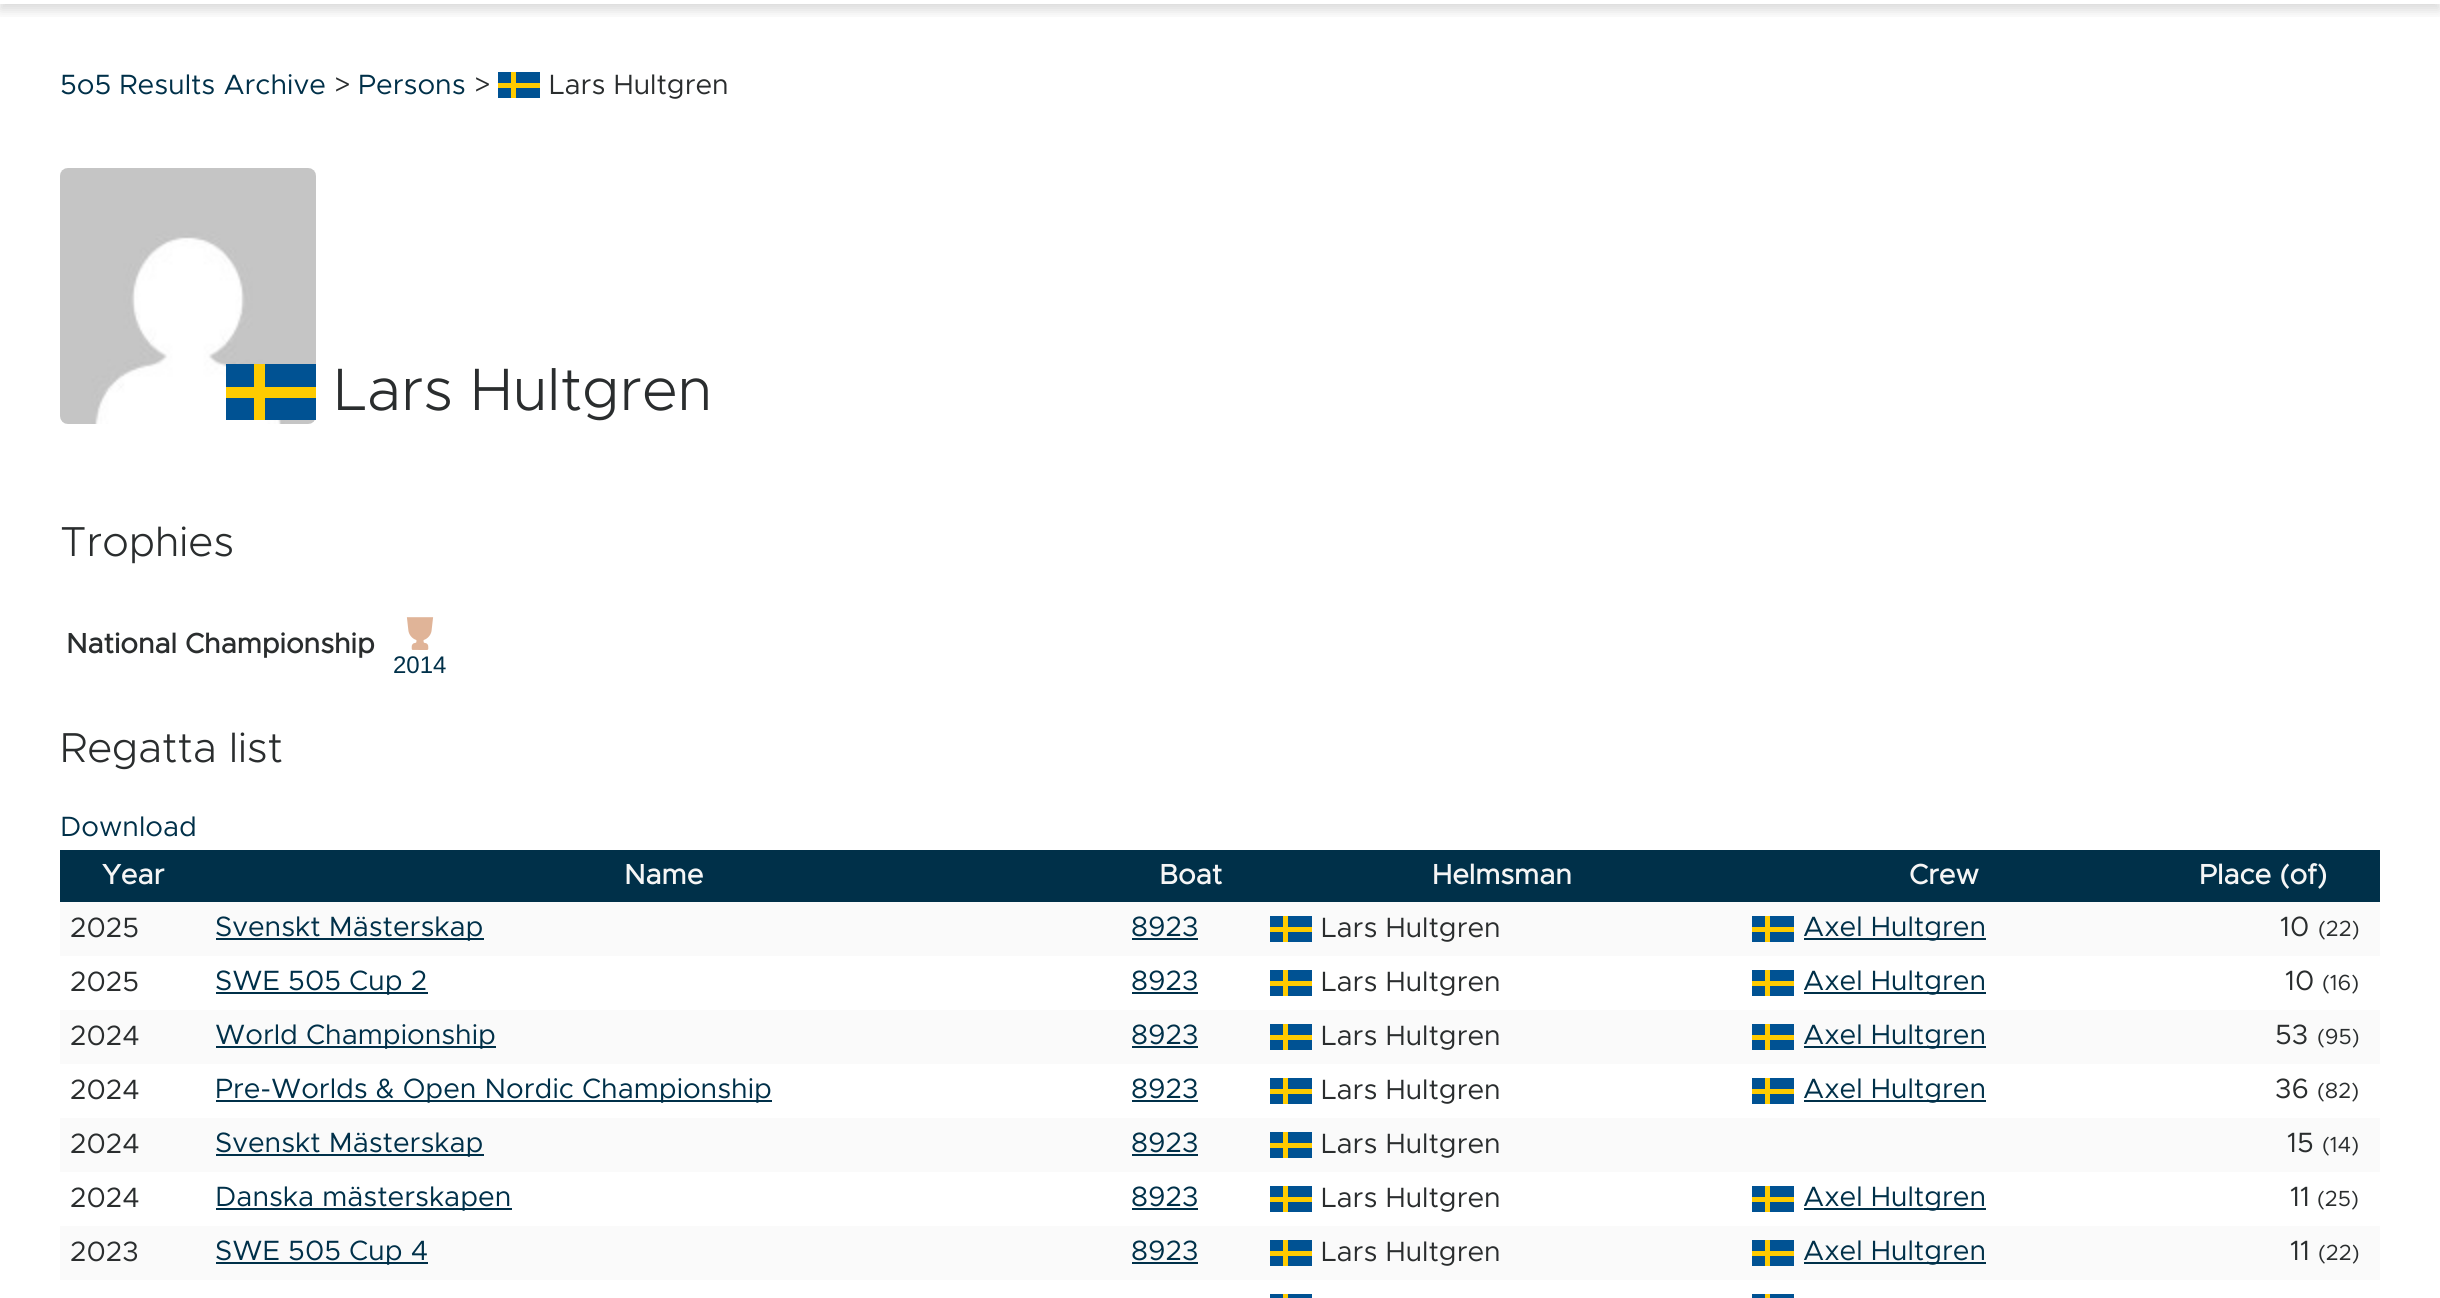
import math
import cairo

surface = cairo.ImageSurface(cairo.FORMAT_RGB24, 2440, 1298)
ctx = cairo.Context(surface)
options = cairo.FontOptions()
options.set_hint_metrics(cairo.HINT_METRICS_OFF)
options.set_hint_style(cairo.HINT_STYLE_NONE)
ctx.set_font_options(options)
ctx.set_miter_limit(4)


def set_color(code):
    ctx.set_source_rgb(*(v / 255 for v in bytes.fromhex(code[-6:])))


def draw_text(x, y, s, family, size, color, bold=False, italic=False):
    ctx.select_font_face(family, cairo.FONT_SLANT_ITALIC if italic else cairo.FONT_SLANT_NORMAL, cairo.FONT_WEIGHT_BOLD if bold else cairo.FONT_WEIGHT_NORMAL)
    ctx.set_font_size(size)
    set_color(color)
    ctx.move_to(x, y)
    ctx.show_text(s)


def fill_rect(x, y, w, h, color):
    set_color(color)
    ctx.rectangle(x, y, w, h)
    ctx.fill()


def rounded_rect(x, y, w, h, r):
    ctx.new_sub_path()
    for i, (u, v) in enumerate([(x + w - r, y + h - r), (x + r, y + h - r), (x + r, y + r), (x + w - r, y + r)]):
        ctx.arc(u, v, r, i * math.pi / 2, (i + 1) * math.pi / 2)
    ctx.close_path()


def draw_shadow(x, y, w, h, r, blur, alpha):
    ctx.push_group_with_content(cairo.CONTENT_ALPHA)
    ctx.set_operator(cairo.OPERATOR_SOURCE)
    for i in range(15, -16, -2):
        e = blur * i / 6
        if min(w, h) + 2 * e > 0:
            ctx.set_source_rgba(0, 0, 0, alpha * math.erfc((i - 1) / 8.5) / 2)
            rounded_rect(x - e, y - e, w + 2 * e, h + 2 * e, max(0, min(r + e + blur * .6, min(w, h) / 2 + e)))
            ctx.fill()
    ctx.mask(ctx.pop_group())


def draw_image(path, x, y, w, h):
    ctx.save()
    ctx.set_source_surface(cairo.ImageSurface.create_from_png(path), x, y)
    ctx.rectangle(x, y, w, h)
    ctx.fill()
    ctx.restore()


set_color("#ffffff")
ctx.paint()
ctx.save()
ctx.rectangle(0, 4, 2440, 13)
ctx.clip()
set_color("#000000")
draw_shadow(0, -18, 2440, 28, 0, 6, 0.15)
ctx.restore()
draw_text(60, 94, "5o5 Results Archive", "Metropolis", 28, "#003049")
draw_text(334, 94, ">", "Metropolis", 28, "#2a2d2e")
draw_text(358, 94, "Persons", "Metropolis", 28, "#003049")
draw_text(474, 94, ">", "Metropolis", 28, "#2a2d2e")
draw_text(549, 94, "Lars Hultgren", "Metropolis", 28, "#2a2d2e")
fill_rect(498, 72, 42, 26, "#005293")
fill_rect(511, 72, 5, 26, "#fecb00")
fill_rect(498, 83, 42, 5, "#fecb00")
draw_image("assets/img1.png", 60, 168, 256, 256)
fill_rect(226, 364, 90, 56, "#005293")
fill_rect(254, 364, 11, 56, "#fecb00")
fill_rect(226, 387, 90, 11, "#fecb00")
draw_text(334, 410, "Lars Hultgren", "Metropolis Light", 60, "#2a2d2e")
draw_text(60, 556, "Trophies", "Metropolis Light", 42, "#2a2d2e")
draw_text(66, 653, "National Championship", "Metropolis", 28, "#2a2d2e", bold=True)
draw_image("assets/img2.png", 406, 617, 28, 33)
draw_text(393, 673, "2014", "Liberation Sans", 24, "#003049")
draw_text(60, 762, "Regatta list", "Metropolis Light", 42, "#2a2d2e")
draw_text(60, 836, "Download", "Metropolis", 28, "#003049")
fill_rect(60, 850, 2320, 52, "#003049")
draw_text(102, 884, "Year", "Metropolis", 28, "#f5f5f5", bold=True)
draw_text(624, 884, "Name", "Metropolis", 28, "#f5f5f5", bold=True)
draw_text(1159, 884, "Boat", "Metropolis", 28, "#f5f5f5", bold=True)
draw_text(1432, 884, "Helmsman", "Metropolis", 28, "#f5f5f5", bold=True)
draw_text(1909, 884, "Crew", "Metropolis", 28, "#f5f5f5", bold=True)
draw_text(2199, 884, "Place (of)", "Metropolis", 28, "#f5f5f5", bold=True)
fill_rect(60, 902, 2320, 54, "#fafafa")
draw_text(70, 937, "2025", "Metropolis", 28, "#2a2d2e")
fill_rect(216, 938, 268, 2, "#003049")
draw_text(215, 936, "Svenskt Mästerskap", "Metropolis", 28, "#003049")
draw_text(1131, 936, "8923", "Metropolis", 28, "#003049")
fill_rect(1132, 938, 66, 2, "#003049")
draw_text(1321, 937, "Lars Hultgren", "Metropolis", 28, "#2a2d2e")
fill_rect(1270, 916, 42, 26, "#005293")
fill_rect(1283, 916, 5, 26, "#fecb00")
fill_rect(1270, 927, 42, 5, "#fecb00")
fill_rect(1804, 938, 182, 2, "#003049")
draw_text(1803, 936, "Axel Hultgren", "Metropolis", 28, "#003049")
fill_rect(1752, 916, 42, 26, "#005293")
fill_rect(1765, 916, 5, 26, "#fecb00")
fill_rect(1752, 927, 42, 5, "#fecb00")
draw_text(2280, 936, "10", "Metropolis", 28, "#2a2d2e")
draw_text(2318, 936, "(22)", "Metropolis", 22, "#2a2d2e")
draw_text(70, 991, "2025", "Metropolis", 28, "#2a2d2e")
fill_rect(216, 992, 212, 2, "#003049")
draw_text(215, 990, "SWE 505 Cup 2", "Metropolis", 28, "#003049")
draw_text(1131, 990, "8923", "Metropolis", 28, "#003049")
fill_rect(1132, 992, 66, 2, "#003049")
draw_text(1321, 991, "Lars Hultgren", "Metropolis", 28, "#2a2d2e")
fill_rect(1270, 970, 42, 26, "#005293")
fill_rect(1283, 970, 5, 26, "#fecb00")
fill_rect(1270, 981, 42, 5, "#fecb00")
fill_rect(1804, 992, 182, 2, "#003049")
draw_text(1803, 990, "Axel Hultgren", "Metropolis", 28, "#003049")
fill_rect(1752, 970, 42, 26, "#005293")
fill_rect(1765, 970, 5, 26, "#fecb00")
fill_rect(1752, 981, 42, 5, "#fecb00")
draw_text(2285, 990, "10", "Metropolis", 28, "#2a2d2e")
draw_text(2322, 990, "(16)", "Metropolis", 22, "#2a2d2e")
fill_rect(60, 1010, 2320, 54, "#fafafa")
draw_text(70, 1045, "2024", "Metropolis", 28, "#2a2d2e")
fill_rect(216, 1046, 280, 2, "#003049")
draw_text(215, 1044, "World Championship", "Metropolis", 28, "#003049")
draw_text(1131, 1044, "8923", "Metropolis", 28, "#003049")
fill_rect(1132, 1046, 66, 2, "#003049")
draw_text(1321, 1045, "Lars Hultgren", "Metropolis", 28, "#2a2d2e")
fill_rect(1270, 1024, 42, 26, "#005293")
fill_rect(1283, 1024, 5, 26, "#fecb00")
fill_rect(1270, 1035, 42, 5, "#fecb00")
fill_rect(1804, 1046, 182, 2, "#003049")
draw_text(1803, 1044, "Axel Hultgren", "Metropolis", 28, "#003049")
fill_rect(1752, 1024, 42, 26, "#005293")
fill_rect(1765, 1024, 5, 26, "#fecb00")
fill_rect(1752, 1035, 42, 5, "#fecb00")
draw_text(2275, 1044, "53", "Metropolis", 28, "#2a2d2e")
draw_text(2317, 1044, "(95)", "Metropolis", 22, "#2a2d2e")
draw_text(70, 1099, "2024", "Metropolis", 28, "#2a2d2e")
fill_rect(216, 1100, 556, 2, "#003049")
draw_text(215, 1098, "Pre-Worlds & Open Nordic Championship", "Metropolis", 28, "#003049")
draw_text(1131, 1098, "8923", "Metropolis", 28, "#003049")
fill_rect(1132, 1100, 66, 2, "#003049")
draw_text(1321, 1099, "Lars Hultgren", "Metropolis", 28, "#2a2d2e")
fill_rect(1270, 1078, 42, 26, "#005293")
fill_rect(1283, 1078, 5, 26, "#fecb00")
fill_rect(1270, 1089, 42, 5, "#fecb00")
fill_rect(1804, 1100, 182, 2, "#003049")
draw_text(1803, 1098, "Axel Hultgren", "Metropolis", 28, "#003049")
fill_rect(1752, 1078, 42, 26, "#005293")
fill_rect(1765, 1078, 5, 26, "#fecb00")
fill_rect(1752, 1089, 42, 5, "#fecb00")
draw_text(2275, 1098, "36", "Metropolis", 28, "#2a2d2e")
draw_text(2317, 1098, "(82)", "Metropolis", 22, "#2a2d2e")
fill_rect(60, 1118, 2320, 54, "#fafafa")
draw_text(70, 1153, "2024", "Metropolis", 28, "#2a2d2e")
fill_rect(216, 1154, 268, 2, "#003049")
draw_text(215, 1152, "Svenskt Mästerskap", "Metropolis", 28, "#003049")
draw_text(1131, 1152, "8923", "Metropolis", 28, "#003049")
fill_rect(1132, 1154, 66, 2, "#003049")
draw_text(1321, 1153, "Lars Hultgren", "Metropolis", 28, "#2a2d2e")
fill_rect(1270, 1132, 42, 26, "#005293")
fill_rect(1283, 1132, 5, 26, "#fecb00")
fill_rect(1270, 1143, 42, 5, "#fecb00")
draw_text(2287, 1152, "15", "Metropolis", 28, "#2a2d2e")
draw_text(2322, 1152, "(14)", "Metropolis", 22, "#2a2d2e")
draw_text(70, 1207, "2024", "Metropolis", 28, "#2a2d2e")
fill_rect(216, 1208, 296, 2, "#003049")
draw_text(215, 1206, "Danska mästerskapen", "Metropolis", 28, "#003049")
draw_text(1131, 1206, "8923", "Metropolis", 28, "#003049")
fill_rect(1132, 1208, 66, 2, "#003049")
draw_text(1321, 1207, "Lars Hultgren", "Metropolis", 28, "#2a2d2e")
fill_rect(1270, 1186, 42, 26, "#005293")
fill_rect(1283, 1186, 5, 26, "#fecb00")
fill_rect(1270, 1197, 42, 5, "#fecb00")
fill_rect(1804, 1208, 182, 2, "#003049")
draw_text(1803, 1206, "Axel Hultgren", "Metropolis", 28, "#003049")
fill_rect(1752, 1186, 42, 26, "#005293")
fill_rect(1765, 1186, 5, 26, "#fecb00")
fill_rect(1752, 1197, 42, 5, "#fecb00")
draw_text(2290, 1206, "11", "Metropolis", 28, "#2a2d2e")
draw_text(2317, 1206, "(25)", "Metropolis", 22, "#2a2d2e")
fill_rect(60, 1226, 2320, 54, "#fafafa")
draw_text(70, 1261, "2023", "Metropolis", 28, "#2a2d2e")
fill_rect(216, 1262, 212, 2, "#003049")
draw_text(215, 1260, "SWE 505 Cup 4", "Metropolis", 28, "#003049")
draw_text(1131, 1260, "8923", "Metropolis", 28, "#003049")
fill_rect(1132, 1262, 66, 2, "#003049")
draw_text(1321, 1261, "Lars Hultgren", "Metropolis", 28, "#2a2d2e")
fill_rect(1270, 1240, 42, 26, "#005293")
fill_rect(1283, 1240, 5, 26, "#fecb00")
fill_rect(1270, 1251, 42, 5, "#fecb00")
fill_rect(1804, 1262, 182, 2, "#003049")
draw_text(1803, 1260, "Axel Hultgren", "Metropolis", 28, "#003049")
fill_rect(1752, 1240, 42, 26, "#005293")
fill_rect(1765, 1240, 5, 26, "#fecb00")
fill_rect(1752, 1251, 42, 5, "#fecb00")
draw_text(2290, 1260, "11", "Metropolis", 28, "#2a2d2e")
draw_text(2318, 1260, "(22)", "Metropolis", 22, "#2a2d2e")
fill_rect(1270, 1294, 42, 4, "#005293")
fill_rect(1283, 1294, 5, 4, "#fecb00")
fill_rect(1752, 1294, 42, 4, "#005293")
fill_rect(1765, 1294, 5, 4, "#fecb00")
surface.write_to_png("output.png")
